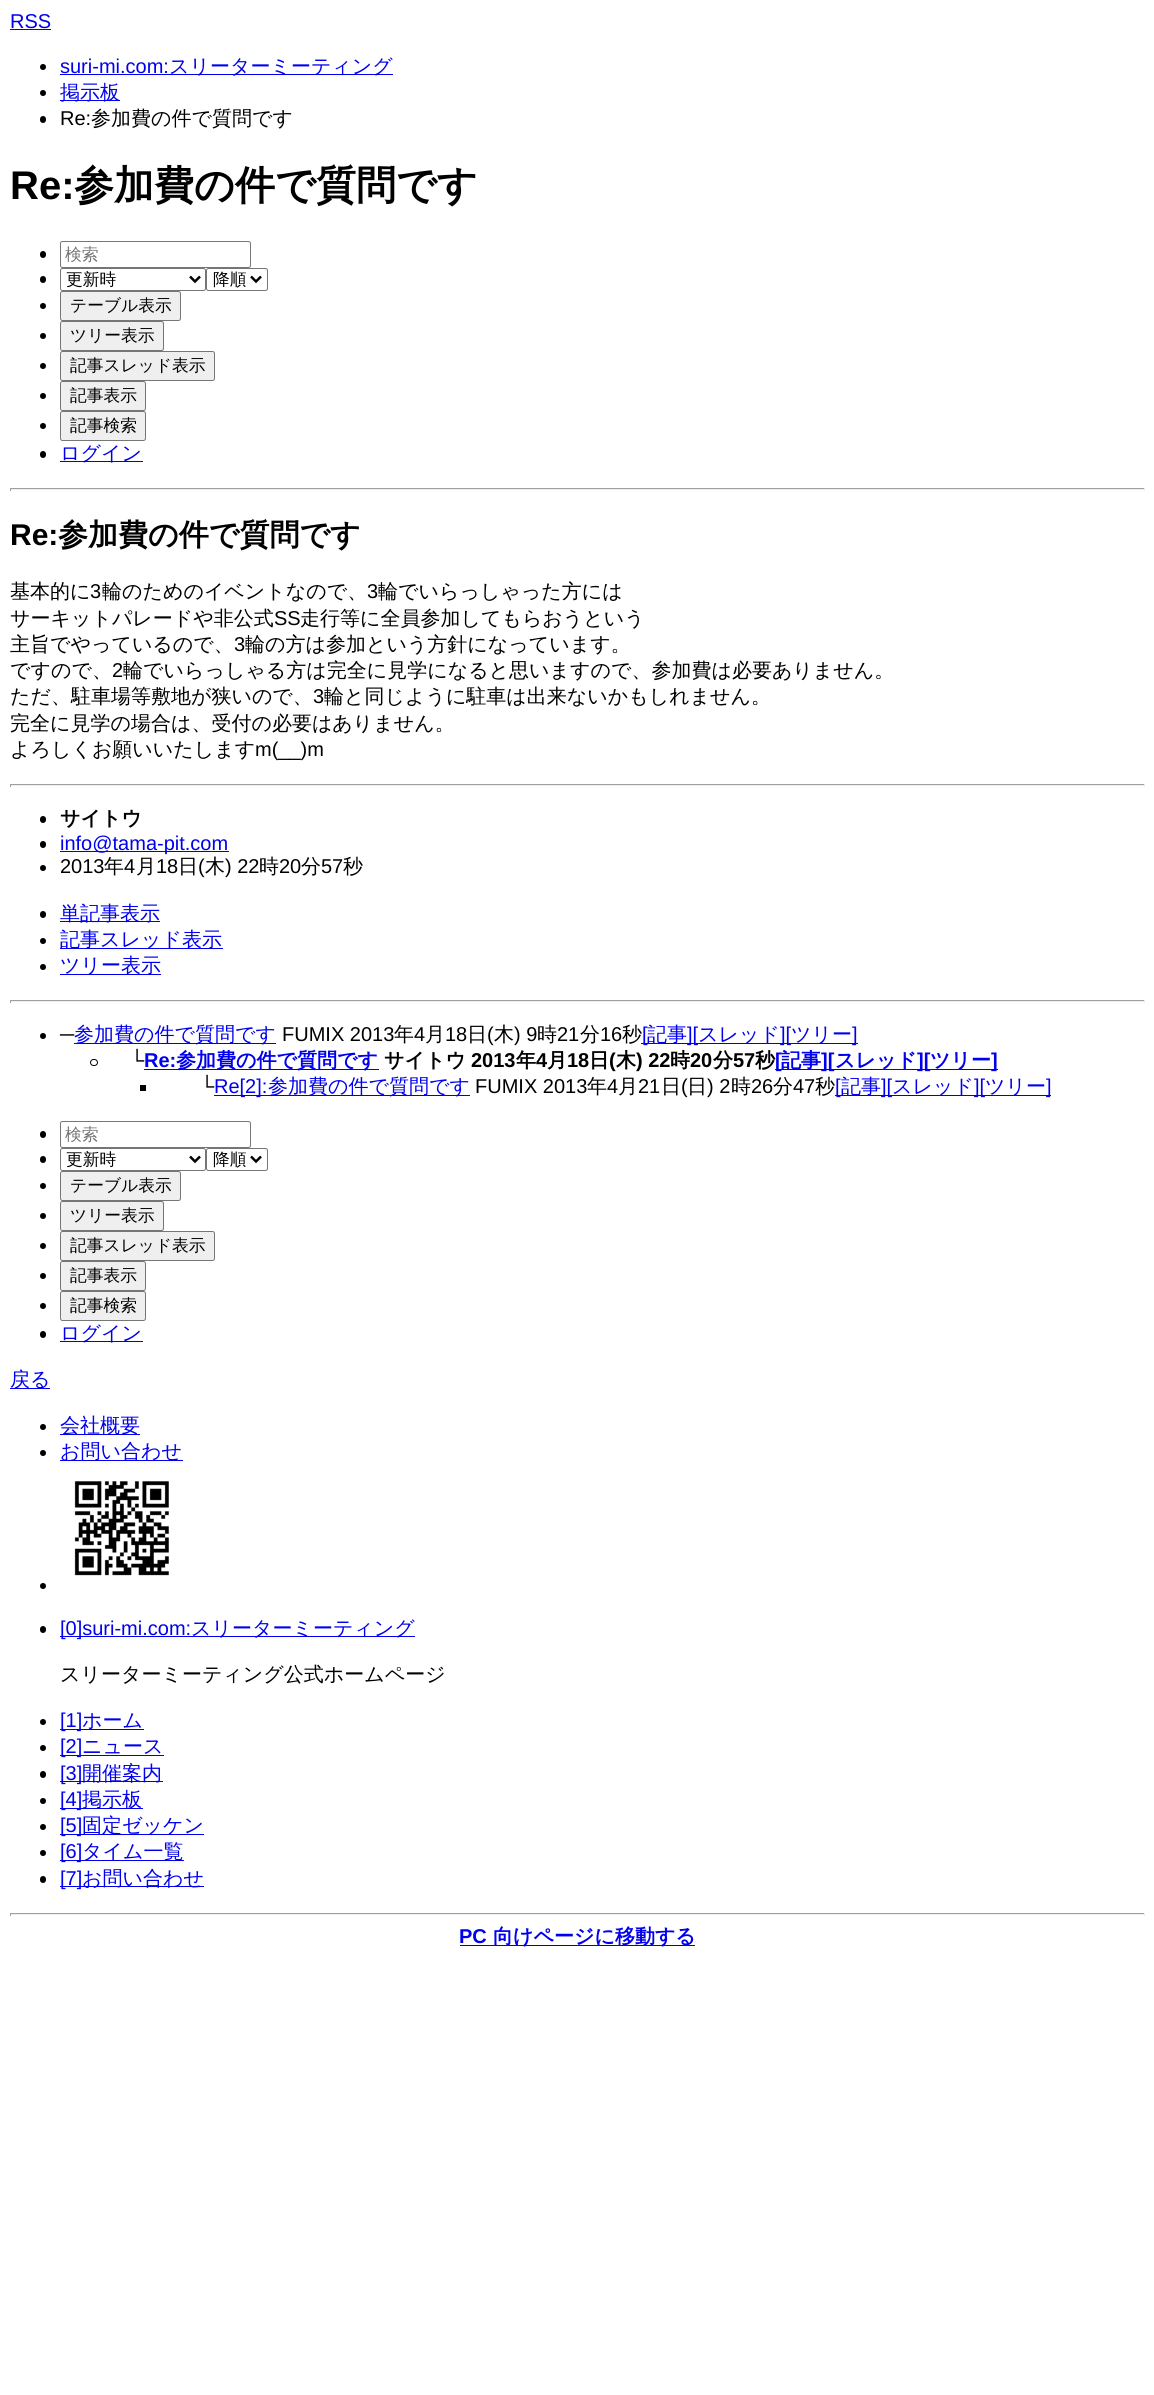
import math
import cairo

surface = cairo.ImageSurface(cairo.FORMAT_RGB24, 1154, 2395)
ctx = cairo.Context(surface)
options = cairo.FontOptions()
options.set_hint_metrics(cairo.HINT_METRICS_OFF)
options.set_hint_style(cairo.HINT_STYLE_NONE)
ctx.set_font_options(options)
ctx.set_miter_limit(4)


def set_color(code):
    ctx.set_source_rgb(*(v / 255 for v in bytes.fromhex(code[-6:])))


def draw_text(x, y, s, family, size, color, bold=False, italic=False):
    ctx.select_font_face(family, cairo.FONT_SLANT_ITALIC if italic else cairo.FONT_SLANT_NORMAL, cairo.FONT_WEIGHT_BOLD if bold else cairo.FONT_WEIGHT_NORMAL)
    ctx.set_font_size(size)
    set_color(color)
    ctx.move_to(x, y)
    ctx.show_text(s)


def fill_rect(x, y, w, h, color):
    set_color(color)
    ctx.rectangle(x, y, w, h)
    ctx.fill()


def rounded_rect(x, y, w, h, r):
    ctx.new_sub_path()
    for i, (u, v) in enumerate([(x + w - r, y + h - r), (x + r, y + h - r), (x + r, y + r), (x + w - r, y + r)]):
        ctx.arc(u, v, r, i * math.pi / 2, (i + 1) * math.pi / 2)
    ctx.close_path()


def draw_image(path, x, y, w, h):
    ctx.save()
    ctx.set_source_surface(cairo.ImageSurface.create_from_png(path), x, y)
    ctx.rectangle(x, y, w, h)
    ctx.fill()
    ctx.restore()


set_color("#ffffff")
ctx.paint()
draw_text(10, 28, "RSS", "Liberation Sans", 20, "#0000ee")
fill_rect(10, 29, 41, 1, "#0000ee")
set_color("#000000")
ctx.new_path()
ctx.arc(43, 67, 3, 0, 2 * math.pi)
ctx.fill()
draw_text(60, 73, "suri-mi.com:", "Liberation Sans", 20, "#0000ee")
fill_rect(60, 74, 333, 1, "#0000ee")
draw_text(169, 73, "スリーターミーティング", "WenQuanYi Zen Hei Medium", 20, "#0000ee")
set_color("#000000")
ctx.new_path()
ctx.arc(43, 93, 3, 0, 2 * math.pi)
ctx.fill()
fill_rect(60, 100, 60, 1, "#0000ee")
draw_text(60, 99, "掲示板", "WenQuanYi Zen Hei Medium", 20, "#0000ee")
set_color("#000000")
rounded_rect(40, 116, 6, 7, 3)
ctx.fill()
draw_text(60, 125, "Re:", "Liberation Sans", 20, "#000000")
draw_text(91, 125, "参加費の件で質問です", "WenQuanYi Zen Hei Medium", 20, "#000000")
draw_text(10, 199, "Re:", "Liberation Sans", 40, "#000000", bold=True)
draw_text(74, 199, "参加費の件で質問です", "WenQuanYi Zen Hei", 40, "#000000", bold=True)
rounded_rect(40, 251, 6, 7, 3)
ctx.fill()
rounded_rect(60.5, 241.5, 190, 26, 2)
set_color("#767676")
ctx.set_line_width(1)
ctx.stroke()
draw_text(65, 260, "検索", "WenQuanYi Zen Hei Medium", 16.75, "#757575")
set_color("#000000")
rounded_rect(40, 276, 6, 7, 3)
ctx.fill()
rounded_rect(60.5, 268.5, 145, 22, 2)
set_color("#767676")
ctx.stroke()
ctx.new_path()
ctx.move_to(190, 276.5)
ctx.line_to(195, 281.5)
ctx.line_to(200, 276.5)
set_color("#000000")
ctx.set_line_width(2.5)
ctx.stroke()
draw_text(66, 285, "更新時", "WenQuanYi Zen Hei Medium", 16.75, "#000000")
rounded_rect(206.5, 268.5, 61, 22, 2)
set_color("#767676")
ctx.set_line_width(1)
ctx.stroke()
ctx.new_path()
ctx.move_to(251, 276.5)
ctx.line_to(256, 281.5)
ctx.line_to(261, 276.5)
set_color("#000000")
ctx.set_line_width(2.5)
ctx.stroke()
draw_text(213, 285, "降順", "WenQuanYi Zen Hei Medium", 16.75, "#000000")
ctx.new_path()
ctx.arc(43, 306, 3, 0, 2 * math.pi)
ctx.fill()
set_color("#efefef")
rounded_rect(60.5, 291.5, 120, 29, 2)
ctx.fill_preserve()
set_color("#767676")
ctx.set_line_width(1)
ctx.stroke()
draw_text(70, 311, "テーブル表示", "WenQuanYi Zen Hei Medium", 16.75, "#000000")
ctx.new_path()
ctx.arc(43, 336, 3, 0, 2 * math.pi)
ctx.fill()
set_color("#efefef")
rounded_rect(60.5, 321.5, 103, 29, 2)
ctx.fill_preserve()
set_color("#767676")
ctx.stroke()
draw_text(70, 341, "ツリー表示", "WenQuanYi Zen Hei Medium", 16.75, "#000000")
ctx.new_path()
ctx.arc(43, 366, 3, 0, 2 * math.pi)
ctx.fill()
set_color("#efefef")
rounded_rect(60.5, 351.5, 154, 29, 2)
ctx.fill_preserve()
set_color("#767676")
ctx.stroke()
draw_text(70, 371, "記事スレッド表示", "WenQuanYi Zen Hei Medium", 16.75, "#000000")
ctx.new_path()
ctx.arc(43, 396, 3, 0, 2 * math.pi)
ctx.fill()
set_color("#efefef")
rounded_rect(60.5, 381.5, 85, 29, 2)
ctx.fill_preserve()
set_color("#767676")
ctx.stroke()
draw_text(70, 401, "記事表示", "WenQuanYi Zen Hei Medium", 16.75, "#000000")
ctx.new_path()
ctx.arc(43, 426, 3, 0, 2 * math.pi)
ctx.fill()
set_color("#efefef")
rounded_rect(60.5, 411.5, 85, 29, 2)
ctx.fill_preserve()
set_color("#767676")
ctx.stroke()
draw_text(70, 431, "記事検索", "WenQuanYi Zen Hei Medium", 16.75, "#000000")
rounded_rect(40, 451, 6, 7, 3)
ctx.fill()
fill_rect(60, 461, 83, 1, "#0000ee")
draw_text(60, 460, "ログイン", "WenQuanYi Zen Hei Medium", 20, "#0000ee")
fill_rect(10, 488, 1135, 1, "#9f9f9f")
fill_rect(1144, 488, 1, 3, "#eeeeee")
fill_rect(10, 489, 1135, 1, "#eeeeee")
fill_rect(10, 488, 1, 3, "#9f9f9f")
draw_text(10, 545, "Re:", "Liberation Sans", 30, "#000000", bold=True)
draw_text(58, 545, "参加費の件で質問です", "WenQuanYi Zen Hei", 30, "#000000", bold=True)
draw_text(10, 598, "基本的に", "WenQuanYi Zen Hei Medium", 20, "#000000")
draw_text(90, 598, "3", "Liberation Sans", 20, "#000000")
draw_text(102, 598, "輪のためのイベントなので、", "WenQuanYi Zen Hei Medium", 20, "#000000")
draw_text(367, 598, "3", "Liberation Sans", 20, "#000000")
draw_text(378, 598, "輪でいらっしゃった方には", "WenQuanYi Zen Hei Medium", 20, "#000000")
draw_text(10, 625, "サーキットパレードや非公式", "WenQuanYi Zen Hei Medium", 20, "#000000")
draw_text(274, 625, "SS", "Liberation Sans", 20, "#000000")
draw_text(300, 625, "走行等に全員参加してもらおうという", "WenQuanYi Zen Hei Medium", 20, "#000000")
draw_text(10, 651, "主旨でやっているので、", "WenQuanYi Zen Hei Medium", 20, "#000000")
draw_text(234, 651, "3", "Liberation Sans", 20, "#000000")
draw_text(245, 651, "輪の方は参加という方針になっています。", "WenQuanYi Zen Hei Medium", 20, "#000000")
draw_text(10, 677, "ですので、", "WenQuanYi Zen Hei Medium", 20, "#000000")
draw_text(112, 677, "2", "Liberation Sans", 20, "#000000")
draw_text(123, 677, "輪でいらっしゃる方は完全に見学になると思いますので、参加費は必要ありません。", "WenQuanYi Zen Hei Medium", 20, "#000000")
draw_text(10, 703, "ただ、駐車場等敷地が狭いので、", "WenQuanYi Zen Hei Medium", 20, "#000000")
draw_text(313, 703, "3", "Liberation Sans", 20, "#000000")
draw_text(324, 703, "輪と同じように駐車は出来ないかもしれません。", "WenQuanYi Zen Hei Medium", 20, "#000000")
draw_text(10, 730, "完全に見学の場合は、受付の必要はありません。", "WenQuanYi Zen Hei Medium", 20, "#000000")
draw_text(10, 756, "よろしくお願いいたします", "WenQuanYi Zen Hei Medium", 20, "#000000")
draw_text(255, 756, "m(__)m", "Liberation Sans", 20, "#000000")
fill_rect(10, 784, 1135, 1, "#9f9f9f")
fill_rect(1144, 784, 1, 3, "#eeeeee")
fill_rect(10, 785, 1135, 1, "#eeeeee")
fill_rect(10, 784, 1, 3, "#9f9f9f")
set_color("#000000")
rounded_rect(40, 816, 6, 7, 3)
ctx.fill()
draw_text(60, 825, "サイトウ", "WenQuanYi Zen Hei", 20, "#000000", bold=True)
rounded_rect(40, 841, 6, 7, 3)
ctx.fill()
fill_rect(60, 851, 169, 1, "#0000ee")
draw_text(60, 850, "info@tama-pit.com", "Liberation Sans", 20, "#0000ee")
set_color("#000000")
ctx.new_path()
ctx.arc(43, 868, 3, 0, 2 * math.pi)
ctx.fill()
draw_text(60, 873, "2013", "Liberation Sans", 20, "#000000")
draw_text(104, 873, "年", "WenQuanYi Zen Hei Medium", 20, "#000000")
draw_text(124, 873, "4", "Liberation Sans", 20, "#000000")
draw_text(136, 873, "月", "WenQuanYi Zen Hei Medium", 20, "#000000")
draw_text(156, 873, "18", "Liberation Sans", 20, "#000000")
draw_text(178, 873, "日", "WenQuanYi Zen Hei Medium", 20, "#000000")
draw_text(198, 873, "(", "Liberation Sans", 20, "#000000")
draw_text(205, 873, "木", "WenQuanYi Zen Hei Medium", 20, "#000000")
draw_text(225, 873, ") 22", "Liberation Sans", 20, "#000000")
draw_text(259, 873, "時", "WenQuanYi Zen Hei Medium", 20, "#000000")
draw_text(279, 873, "20", "Liberation Sans", 20, "#000000")
draw_text(301, 873, "分", "WenQuanYi Zen Hei Medium", 20, "#000000")
draw_text(321, 873, "57", "Liberation Sans", 20, "#000000")
draw_text(343, 873, "秒", "WenQuanYi Zen Hei Medium", 20, "#000000")
rounded_rect(40, 911, 6, 7, 3)
ctx.fill()
fill_rect(60, 921, 100, 1, "#0000ee")
draw_text(60, 920, "単記事表示", "WenQuanYi Zen Hei Medium", 20, "#0000ee")
set_color("#000000")
ctx.new_path()
ctx.arc(43, 941, 3, 0, 2 * math.pi)
ctx.fill()
fill_rect(60, 948, 163, 1, "#0000ee")
draw_text(60, 946, "記事スレッド表示", "WenQuanYi Zen Hei Medium", 20, "#0000ee")
set_color("#000000")
ctx.new_path()
ctx.arc(43, 967, 3, 0, 2 * math.pi)
ctx.fill()
fill_rect(60, 974, 101, 1, "#0000ee")
draw_text(60, 972, "ツリー表示", "WenQuanYi Zen Hei Medium", 20, "#0000ee")
fill_rect(10, 1000, 1135, 1, "#9f9f9f")
fill_rect(1144, 1000, 1, 3, "#eeeeee")
fill_rect(10, 1001, 1135, 1, "#eeeeee")
fill_rect(10, 1000, 1, 3, "#9f9f9f")
set_color("#000000")
ctx.new_path()
ctx.arc(43, 1036, 3, 0, 2 * math.pi)
ctx.fill()
draw_text(60, 1041, "─", "Liberation Sans", 20, "#000000")
fill_rect(74, 1043, 202, 1, "#0000ee")
draw_text(74, 1041, "参加費の件で質問です", "WenQuanYi Zen Hei Medium", 20, "#0000ee")
draw_text(282, 1041, "FUMIX 2013", "Liberation Sans", 20, "#000000")
draw_text(394, 1041, "年", "WenQuanYi Zen Hei Medium", 20, "#000000")
draw_text(414, 1041, "4", "Liberation Sans", 20, "#000000")
draw_text(425, 1041, "月", "WenQuanYi Zen Hei Medium", 20, "#000000")
draw_text(445, 1041, "18", "Liberation Sans", 20, "#000000")
draw_text(467, 1041, "日", "WenQuanYi Zen Hei Medium", 20, "#000000")
draw_text(487, 1041, "(", "Liberation Sans", 20, "#000000")
draw_text(494, 1041, "木", "WenQuanYi Zen Hei Medium", 20, "#000000")
draw_text(514, 1041, ") 9", "Liberation Sans", 20, "#000000")
draw_text(537, 1041, "時", "WenQuanYi Zen Hei Medium", 20, "#000000")
draw_text(557, 1041, "21", "Liberation Sans", 20, "#000000")
draw_text(580, 1041, "分", "WenQuanYi Zen Hei Medium", 20, "#000000")
draw_text(600, 1041, "16", "Liberation Sans", 20, "#000000")
draw_text(622, 1041, "秒", "WenQuanYi Zen Hei Medium", 20, "#000000")
fill_rect(641, 1043, 217, 1, "#0000ee")
draw_text(642, 1041, "[", "Liberation Sans", 20, "#0000ee")
draw_text(647, 1041, "記事", "WenQuanYi Zen Hei Medium", 20, "#0000ee")
draw_text(687, 1041, "][", "Liberation Sans", 20, "#0000ee")
draw_text(698, 1041, "スレッド", "WenQuanYi Zen Hei Medium", 20, "#0000ee")
draw_text(780, 1041, "][", "Liberation Sans", 20, "#0000ee")
draw_text(791, 1041, "ツリー", "WenQuanYi Zen Hei Medium", 20, "#0000ee")
draw_text(852, 1041, "]", "Liberation Sans", 20, "#0000ee")
rounded_rect(90.5, 1059.5, 7, 6, 3)
set_color("#000000")
ctx.stroke()
draw_text(130, 1067, "└", "Liberation Sans", 20, "#000000")
draw_text(144, 1067, "Re:", "Liberation Sans", 20, "#0000ee", bold=True)
fill_rect(144, 1069, 235, 1, "#0000ee")
draw_text(176, 1067, "参加費の件で質問です", "WenQuanYi Zen Hei", 20, "#0000ee", bold=True)
draw_text(384, 1067, "サイトウ", "WenQuanYi Zen Hei", 20, "#000000", bold=True)
draw_text(471, 1067, "2013", "Liberation Sans", 20, "#000000", bold=True)
draw_text(516, 1067, "年", "WenQuanYi Zen Hei", 20, "#000000", bold=True)
draw_text(536, 1067, "4", "Liberation Sans", 20, "#000000", bold=True)
draw_text(547, 1067, "月", "WenQuanYi Zen Hei", 20, "#000000", bold=True)
draw_text(567, 1067, "18", "Liberation Sans", 20, "#000000", bold=True)
draw_text(589, 1067, "日", "WenQuanYi Zen Hei", 20, "#000000", bold=True)
draw_text(609, 1067, "(", "Liberation Sans", 20, "#000000", bold=True)
draw_text(616, 1067, "木", "WenQuanYi Zen Hei", 20, "#000000", bold=True)
draw_text(636, 1067, ") 22", "Liberation Sans", 20, "#000000", bold=True)
draw_text(670, 1067, "時", "WenQuanYi Zen Hei", 20, "#000000", bold=True)
draw_text(690, 1067, "20", "Liberation Sans", 20, "#000000", bold=True)
draw_text(713, 1067, "分", "WenQuanYi Zen Hei", 20, "#000000", bold=True)
draw_text(733, 1067, "57", "Liberation Sans", 20, "#000000", bold=True)
draw_text(755, 1067, "秒", "WenQuanYi Zen Hei", 20, "#000000", bold=True)
fill_rect(775, 1069, 223, 1, "#0000ee")
draw_text(775, 1067, "[", "Liberation Sans", 20, "#0000ee", bold=True)
draw_text(781, 1067, "記事", "WenQuanYi Zen Hei", 20, "#0000ee", bold=True)
draw_text(821, 1067, "][", "Liberation Sans", 20, "#0000ee", bold=True)
draw_text(835, 1067, "スレッド", "WenQuanYi Zen Hei", 20, "#0000ee", bold=True)
draw_text(917, 1067, "][", "Liberation Sans", 20, "#0000ee", bold=True)
draw_text(930, 1067, "ツリー", "WenQuanYi Zen Hei", 20, "#0000ee", bold=True)
draw_text(991, 1067, "]", "Liberation Sans", 20, "#0000ee", bold=True)
fill_rect(140, 1085, 6, 6, "#000000")
draw_text(200, 1093, "└", "Liberation Sans", 20, "#000000")
fill_rect(214, 1095, 256, 1, "#0000ee")
draw_text(214, 1093, "Re[2]:", "Liberation Sans", 20, "#0000ee")
draw_text(268, 1093, "参加費の件で質問です", "WenQuanYi Zen Hei Medium", 20, "#0000ee")
draw_text(475, 1093, "FUMIX 2013", "Liberation Sans", 20, "#000000")
draw_text(587, 1093, "年", "WenQuanYi Zen Hei Medium", 20, "#000000")
draw_text(607, 1093, "4", "Liberation Sans", 20, "#000000")
draw_text(618, 1093, "月", "WenQuanYi Zen Hei Medium", 20, "#000000")
draw_text(638, 1093, "21", "Liberation Sans", 20, "#000000")
draw_text(661, 1093, "日", "WenQuanYi Zen Hei Medium", 20, "#000000")
draw_text(681, 1093, "(", "Liberation Sans", 20, "#000000")
draw_text(687, 1093, "日", "WenQuanYi Zen Hei Medium", 20, "#000000")
draw_text(707, 1093, ") 2", "Liberation Sans", 20, "#000000")
draw_text(731, 1093, "時", "WenQuanYi Zen Hei Medium", 20, "#000000")
draw_text(751, 1093, "26", "Liberation Sans", 20, "#000000")
draw_text(773, 1093, "分", "WenQuanYi Zen Hei Medium", 20, "#000000")
draw_text(793, 1093, "47", "Liberation Sans", 20, "#000000")
draw_text(815, 1093, "秒", "WenQuanYi Zen Hei Medium", 20, "#000000")
fill_rect(835, 1095, 216, 1, "#0000ee")
draw_text(835, 1093, "[", "Liberation Sans", 20, "#0000ee")
draw_text(841, 1093, "記事", "WenQuanYi Zen Hei Medium", 20, "#0000ee")
draw_text(881, 1093, "][", "Liberation Sans", 20, "#0000ee")
draw_text(892, 1093, "スレッド", "WenQuanYi Zen Hei Medium", 20, "#0000ee")
draw_text(974, 1093, "][", "Liberation Sans", 20, "#0000ee")
draw_text(985, 1093, "ツリー", "WenQuanYi Zen Hei Medium", 20, "#0000ee")
draw_text(1046, 1093, "]", "Liberation Sans", 20, "#0000ee")
set_color("#000000")
rounded_rect(40, 1131, 6, 7, 3)
ctx.fill()
rounded_rect(60.5, 1121.5, 190, 26, 2)
set_color("#767676")
ctx.stroke()
draw_text(65, 1140, "検索", "WenQuanYi Zen Hei Medium", 16.75, "#757575")
set_color("#000000")
rounded_rect(40, 1156, 6, 7, 3)
ctx.fill()
rounded_rect(60.5, 1148.5, 145, 22, 2)
set_color("#767676")
ctx.stroke()
ctx.new_path()
ctx.move_to(190, 1156.5)
ctx.line_to(195, 1161.5)
ctx.line_to(200, 1156.5)
set_color("#000000")
ctx.set_line_width(2.5)
ctx.stroke()
draw_text(66, 1165, "更新時", "WenQuanYi Zen Hei Medium", 16.75, "#000000")
rounded_rect(206.5, 1148.5, 61, 22, 2)
set_color("#767676")
ctx.set_line_width(1)
ctx.stroke()
ctx.new_path()
ctx.move_to(251, 1156.5)
ctx.line_to(256, 1161.5)
ctx.line_to(261, 1156.5)
set_color("#000000")
ctx.set_line_width(2.5)
ctx.stroke()
draw_text(213, 1165, "降順", "WenQuanYi Zen Hei Medium", 16.75, "#000000")
ctx.new_path()
ctx.arc(43, 1186, 3, 0, 2 * math.pi)
ctx.fill()
set_color("#efefef")
rounded_rect(60.5, 1171.5, 120, 29, 2)
ctx.fill_preserve()
set_color("#767676")
ctx.set_line_width(1)
ctx.stroke()
draw_text(70, 1191, "テーブル表示", "WenQuanYi Zen Hei Medium", 16.75, "#000000")
ctx.new_path()
ctx.arc(43, 1216, 3, 0, 2 * math.pi)
ctx.fill()
set_color("#efefef")
rounded_rect(60.5, 1201.5, 103, 29, 2)
ctx.fill_preserve()
set_color("#767676")
ctx.stroke()
draw_text(70, 1221, "ツリー表示", "WenQuanYi Zen Hei Medium", 16.75, "#000000")
ctx.new_path()
ctx.arc(43, 1246, 3, 0, 2 * math.pi)
ctx.fill()
set_color("#efefef")
rounded_rect(60.5, 1231.5, 154, 29, 2)
ctx.fill_preserve()
set_color("#767676")
ctx.stroke()
draw_text(70, 1251, "記事スレッド表示", "WenQuanYi Zen Hei Medium", 16.75, "#000000")
ctx.new_path()
ctx.arc(43, 1276, 3, 0, 2 * math.pi)
ctx.fill()
set_color("#efefef")
rounded_rect(60.5, 1261.5, 85, 29, 2)
ctx.fill_preserve()
set_color("#767676")
ctx.stroke()
draw_text(70, 1281, "記事表示", "WenQuanYi Zen Hei Medium", 16.75, "#000000")
ctx.new_path()
ctx.arc(43, 1306, 3, 0, 2 * math.pi)
ctx.fill()
set_color("#efefef")
rounded_rect(60.5, 1291.5, 85, 29, 2)
ctx.fill_preserve()
set_color("#767676")
ctx.stroke()
draw_text(70, 1311, "記事検索", "WenQuanYi Zen Hei Medium", 16.75, "#000000")
rounded_rect(40, 1331, 6, 7, 3)
ctx.fill()
fill_rect(60, 1341, 83, 1, "#0000ee")
draw_text(60, 1340, "ログイン", "WenQuanYi Zen Hei Medium", 20, "#0000ee")
fill_rect(10, 1388, 40, 1, "#0000ee")
draw_text(10, 1386, "戻る", "WenQuanYi Zen Hei Medium", 20, "#0000ee")
set_color("#000000")
ctx.new_path()
ctx.arc(43, 1427, 3, 0, 2 * math.pi)
ctx.fill()
fill_rect(60, 1434, 80, 1, "#0000ee")
draw_text(60, 1432, "会社概要", "WenQuanYi Zen Hei Medium", 20, "#0000ee")
set_color("#000000")
ctx.new_path()
ctx.arc(43, 1453, 3, 0, 2 * math.pi)
ctx.fill()
fill_rect(60, 1460, 123, 1, "#0000ee")
draw_text(60, 1458, "お問い合わせ", "WenQuanYi Zen Hei Medium", 20, "#0000ee")
draw_image("assets/img1.png", 74, 1481, 95, 95)
set_color("#000000")
ctx.arc(43, 1586, 3, 0, 2 * math.pi)
ctx.fill()
rounded_rect(40, 1626, 6, 7, 3)
ctx.fill()
fill_rect(60, 1636, 355, 1, "#0000ee")
draw_text(60, 1635, "[0]suri-mi.com:", "Liberation Sans", 20, "#0000ee")
draw_text(191, 1635, "スリーターミーティング", "WenQuanYi Zen Hei Medium", 20, "#0000ee")
draw_text(60, 1681, "スリーターミーティング公式ホームページ", "WenQuanYi Zen Hei Medium", 20, "#000000")
ctx.new_path()
ctx.arc(43, 1722, 3, 0, 2 * math.pi)
ctx.fill()
fill_rect(60, 1729, 84, 1, "#0000ee")
draw_text(60, 1727, "[1]", "Liberation Sans", 20, "#0000ee")
draw_text(82, 1727, "ホーム", "WenQuanYi Zen Hei Medium", 20, "#0000ee")
set_color("#000000")
ctx.new_path()
ctx.arc(43, 1748, 3, 0, 2 * math.pi)
ctx.fill()
fill_rect(60, 1755, 104, 1, "#0000ee")
draw_text(60, 1753, "[2]", "Liberation Sans", 20, "#0000ee")
draw_text(82, 1753, "ニュース", "WenQuanYi Zen Hei Medium", 20, "#0000ee")
set_color("#000000")
rounded_rect(40, 1771, 6, 7, 3)
ctx.fill()
fill_rect(60, 1781, 103, 1, "#0000ee")
draw_text(60, 1780, "[3]", "Liberation Sans", 20, "#0000ee")
draw_text(82, 1780, "開催案内", "WenQuanYi Zen Hei Medium", 20, "#0000ee")
set_color("#000000")
ctx.new_path()
ctx.arc(43, 1801, 3, 0, 2 * math.pi)
ctx.fill()
fill_rect(60, 1808, 83, 1, "#0000ee")
draw_text(60, 1806, "[4]", "Liberation Sans", 20, "#0000ee")
draw_text(82, 1806, "掲示板", "WenQuanYi Zen Hei Medium", 20, "#0000ee")
set_color("#000000")
ctx.new_path()
ctx.arc(43, 1827, 3, 0, 2 * math.pi)
ctx.fill()
fill_rect(60, 1834, 144, 1, "#0000ee")
draw_text(60, 1832, "[5]", "Liberation Sans", 20, "#0000ee")
draw_text(82, 1832, "固定ゼッケン", "WenQuanYi Zen Hei Medium", 20, "#0000ee")
set_color("#000000")
ctx.new_path()
ctx.arc(43, 1853, 3, 0, 2 * math.pi)
ctx.fill()
fill_rect(60, 1860, 124, 1, "#0000ee")
draw_text(60, 1858, "[6]", "Liberation Sans", 20, "#0000ee")
draw_text(82, 1858, "タイム一覧", "WenQuanYi Zen Hei Medium", 20, "#0000ee")
set_color("#000000")
rounded_rect(40, 1876, 6, 7, 3)
ctx.fill()
fill_rect(60, 1886, 144, 1, "#0000ee")
draw_text(60, 1885, "[7]", "Liberation Sans", 20, "#0000ee")
draw_text(82, 1885, "お問い合わせ", "WenQuanYi Zen Hei Medium", 20, "#0000ee")
fill_rect(10, 1913, 1135, 1, "#9f9f9f")
fill_rect(1144, 1913, 1, 3, "#eeeeee")
fill_rect(10, 1914, 1135, 1, "#eeeeee")
fill_rect(10, 1913, 1, 3, "#9f9f9f")
draw_text(459, 1943, "PC", "Liberation Sans", 20, "#0000ee", bold=True)
fill_rect(460, 1945, 235, 1, "#0000ee")
draw_text(493, 1943, "向けページに移動する", "WenQuanYi Zen Hei", 20, "#0000ee", bold=True)
surface.write_to_png("output.png")
